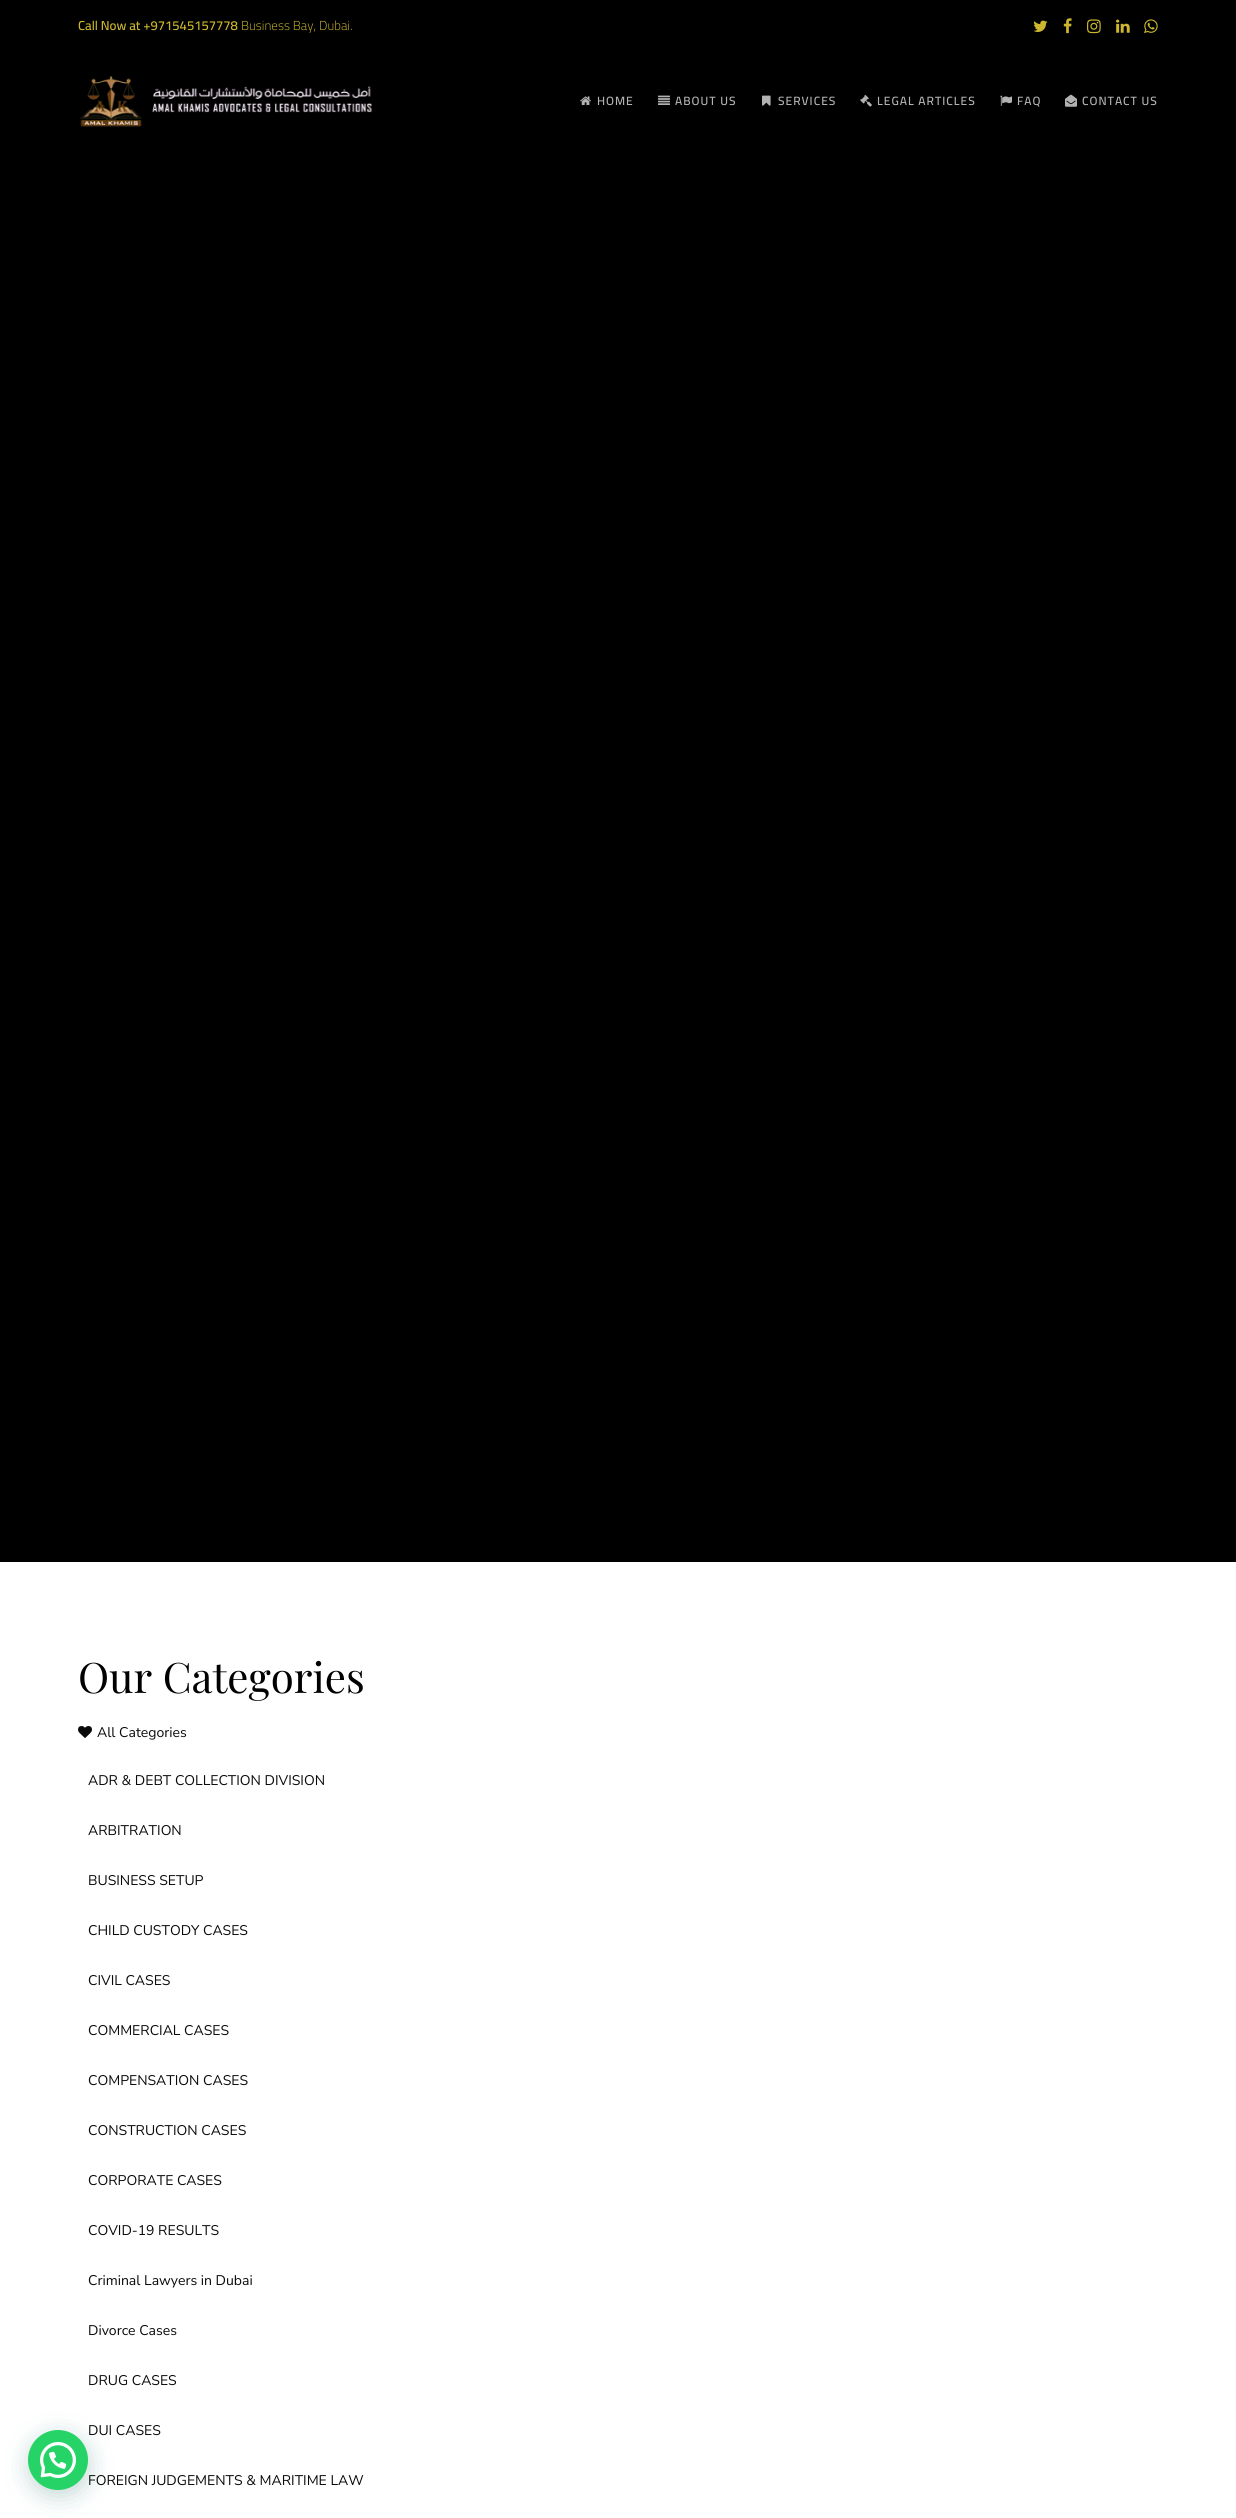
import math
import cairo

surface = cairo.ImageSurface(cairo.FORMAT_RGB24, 1236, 2518)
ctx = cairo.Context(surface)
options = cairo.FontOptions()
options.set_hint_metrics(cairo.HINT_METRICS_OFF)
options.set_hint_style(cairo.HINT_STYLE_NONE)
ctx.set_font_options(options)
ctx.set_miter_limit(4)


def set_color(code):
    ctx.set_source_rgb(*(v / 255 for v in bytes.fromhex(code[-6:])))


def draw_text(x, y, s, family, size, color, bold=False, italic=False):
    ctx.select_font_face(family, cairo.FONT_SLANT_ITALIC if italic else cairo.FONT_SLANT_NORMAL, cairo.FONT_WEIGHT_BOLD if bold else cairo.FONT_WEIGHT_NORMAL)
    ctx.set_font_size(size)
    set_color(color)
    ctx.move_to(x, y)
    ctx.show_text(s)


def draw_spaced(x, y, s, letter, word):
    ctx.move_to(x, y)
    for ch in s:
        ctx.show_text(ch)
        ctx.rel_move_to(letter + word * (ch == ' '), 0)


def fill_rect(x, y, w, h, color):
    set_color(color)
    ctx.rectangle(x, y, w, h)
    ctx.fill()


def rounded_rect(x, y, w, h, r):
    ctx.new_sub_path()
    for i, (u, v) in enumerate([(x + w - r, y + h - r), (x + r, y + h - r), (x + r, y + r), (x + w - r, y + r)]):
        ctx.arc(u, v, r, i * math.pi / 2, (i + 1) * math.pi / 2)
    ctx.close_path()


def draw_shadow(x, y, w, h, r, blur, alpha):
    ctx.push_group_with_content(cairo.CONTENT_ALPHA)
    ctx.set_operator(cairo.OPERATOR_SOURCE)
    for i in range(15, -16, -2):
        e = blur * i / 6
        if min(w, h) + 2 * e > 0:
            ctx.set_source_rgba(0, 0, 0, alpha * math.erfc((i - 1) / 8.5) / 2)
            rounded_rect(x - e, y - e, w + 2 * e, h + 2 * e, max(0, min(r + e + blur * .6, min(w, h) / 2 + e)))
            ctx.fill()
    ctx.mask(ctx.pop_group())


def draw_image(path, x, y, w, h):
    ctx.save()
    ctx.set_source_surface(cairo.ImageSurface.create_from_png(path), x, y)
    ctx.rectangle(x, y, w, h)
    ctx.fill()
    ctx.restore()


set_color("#000000")
ctx.paint()
fill_rect(0, 1562, 1236, 956, "#ffffff")
set_color("#075e54")
draw_shadow(29, 2436, 60, 60, 30, 12, 0.24)
set_color("#25d366")
ctx.arc(58, 2460, 30, 0, 2 * math.pi)
ctx.fill()
draw_image("assets/img1.png", 40, 2442, 36, 36)
draw_text(78, 30, "Call Now at +971545157778", "Cairo SemiBold", 13, "#ccb72e")
draw_text(241, 30, "Business Bay, Dubai.", "Cairo Light", 13, "#ccb72e")
draw_image("assets/img2.png", 1033, 20, 15, 12)
draw_image("assets/img3.png", 1063, 18, 9, 16)
draw_image("assets/img4.png", 1087, 19, 14, 15)
draw_image("assets/img5.png", 1116, 19, 14, 14)
draw_image("assets/img6.png", 1144, 19, 14, 15)
draw_image("assets/img7.png", 80, 76, 292, 51)
draw_image("assets/img8.png", 580, 96, 11, 9)
ctx.select_font_face("Cairo SemiBold")
ctx.set_font_size(12)
set_color("#b3b3b3")
draw_spaced(597, 105, "HOME", 1, 0)
draw_image("assets/img9.png", 658, 95, 12, 10)
draw_spaced(675, 105, "ABOUT US", 1, 0)
draw_image("assets/img10.png", 762, 95, 9, 11)
draw_spaced(778, 105, "SERVICES", 1, 0)
draw_image("assets/img11.png", 860, 95, 12, 12)
draw_spaced(877, 105, "LEGAL ARTICLES", 1, 0)
draw_image("assets/img12.png", 1000, 95, 12, 11)
draw_spaced(1017, 105, "FAQ", 1, 0)
draw_image("assets/img13.png", 1065, 94, 12, 13)
draw_spaced(1082, 105, "CONTACT US", 1, 0)
draw_text(78, 1693, "Our Categories", "Playfair Display", 42, "#000000")
draw_image("assets/img14.png", 78, 1726, 14, 12)
draw_text(97, 1737, "All Categories", "Nunito Sans", 14, "#0a0a0a")
draw_text(88, 1785, "ADR & DEBT COLLECTION DIVISION", "Nunito Sans", 14, "#0a0a0a")
draw_text(88, 1835, "ARBITRATION", "Nunito Sans", 14, "#0a0a0a")
draw_text(88, 1885, "BUSINESS SETUP", "Nunito Sans", 14, "#0a0a0a")
draw_text(88, 1935, "CHILD CUSTODY CASES", "Nunito Sans", 14, "#0a0a0a")
draw_text(88, 1985, "CIVIL CASES", "Nunito Sans", 14, "#0a0a0a")
draw_text(88, 2035, "COMMERCIAL CASES", "Nunito Sans", 14, "#0a0a0a")
draw_text(88, 2085, "COMPENSATION CASES", "Nunito Sans", 14, "#0a0a0a")
draw_text(88, 2135, "CONSTRUCTION CASES", "Nunito Sans", 14, "#0a0a0a")
draw_text(88, 2185, "CORPORATE CASES", "Nunito Sans", 14, "#0a0a0a")
draw_text(88, 2235, "COVID-19 RESULTS", "Nunito Sans", 14, "#0a0a0a")
draw_text(88, 2285, "Criminal Lawyers in Dubai", "Nunito Sans", 14, "#0a0a0a")
draw_text(88, 2335, "Divorce Cases", "Nunito Sans", 14, "#0a0a0a")
draw_text(88, 2385, "DRUG CASES", "Nunito Sans", 14, "#0a0a0a")
draw_text(88, 2435, "DUI CASES", "Nunito Sans", 14, "#0a0a0a")
draw_text(88, 2485, "FOREIGN JUDGEMENTS & MARITIME LAW", "Nunito Sans", 14, "#0a0a0a")
surface.write_to_png("output.png")
